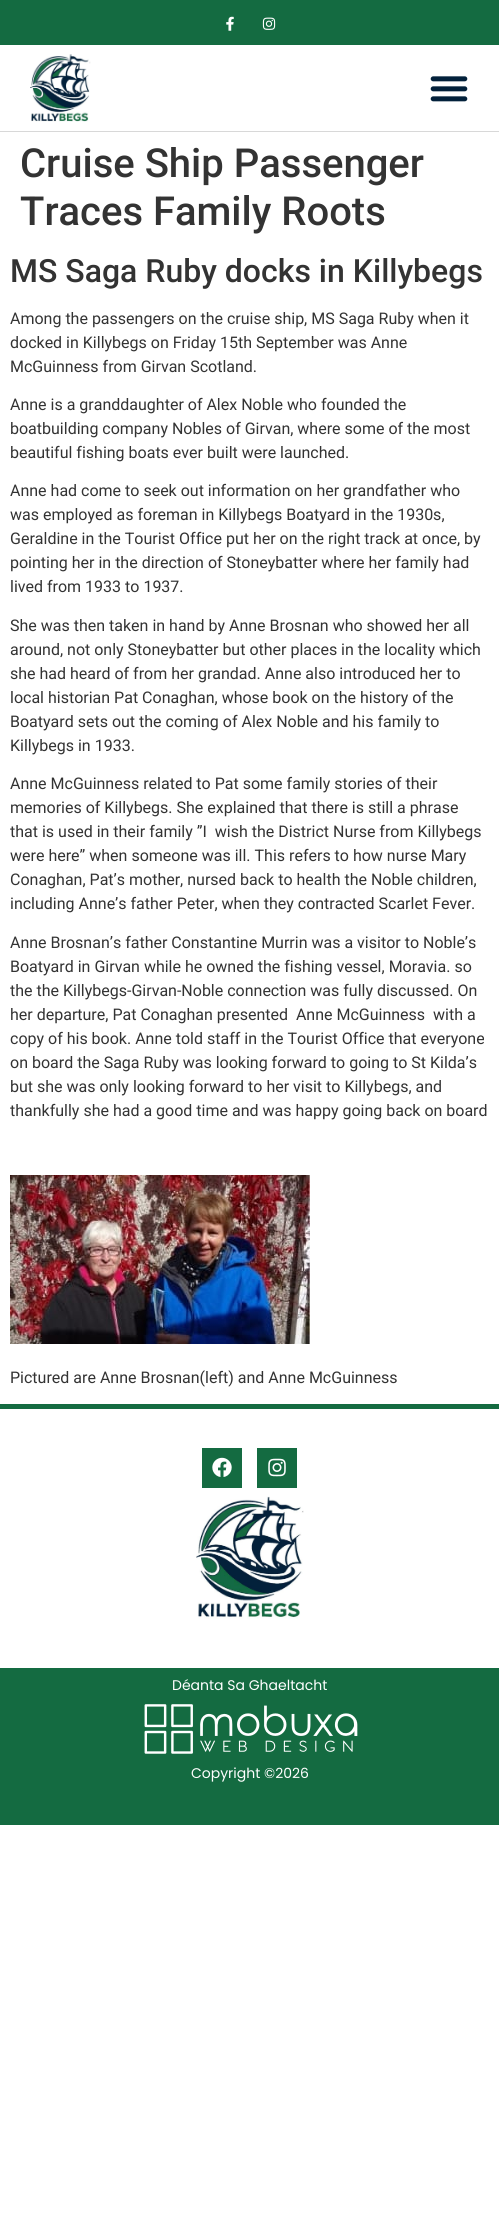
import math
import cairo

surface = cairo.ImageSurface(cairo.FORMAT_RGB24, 499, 2228)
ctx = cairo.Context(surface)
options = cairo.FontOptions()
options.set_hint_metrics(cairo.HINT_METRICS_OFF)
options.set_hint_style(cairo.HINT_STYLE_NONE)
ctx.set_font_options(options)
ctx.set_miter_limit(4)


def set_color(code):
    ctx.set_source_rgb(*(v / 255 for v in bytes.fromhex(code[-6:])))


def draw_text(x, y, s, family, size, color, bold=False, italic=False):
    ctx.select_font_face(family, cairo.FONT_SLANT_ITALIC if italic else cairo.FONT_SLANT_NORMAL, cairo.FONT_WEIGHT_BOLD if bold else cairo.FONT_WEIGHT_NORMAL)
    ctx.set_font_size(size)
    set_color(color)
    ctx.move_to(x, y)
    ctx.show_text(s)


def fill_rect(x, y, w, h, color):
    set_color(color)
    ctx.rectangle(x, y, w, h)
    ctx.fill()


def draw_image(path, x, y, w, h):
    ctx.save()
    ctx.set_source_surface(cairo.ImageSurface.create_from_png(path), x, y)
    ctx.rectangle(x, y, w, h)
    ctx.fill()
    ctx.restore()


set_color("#ffffff")
ctx.paint()
fill_rect(0, 0, 499, 45, "#146b41")
draw_image("assets/img1.png", 226, 16, 8, 15)
draw_image("assets/img2.png", 262, 17, 14, 13)
fill_rect(0, 131, 499, 1, "#d8d8d8")
draw_image("assets/img3.png", 30, 54, 61, 68)
draw_image("assets/img4.png", 430, 76, 38, 26)
draw_text(20, 177, "Cruise Ship Passenger", "Roboto Medium", 40, "#333333")
draw_text(20, 225, "Traces Family Roots", "Roboto Medium", 40, "#333333")
draw_text(10, 282, "MS Saga Ruby docks in Killybegs", "Roboto Medium", 32, "#333333")
draw_text(10, 324, "Among the passengers on the cruise ship, MS Saga Ruby when it", "Roboto", 16, "#333333")
draw_text(10, 348, "docked in Killybegs on Friday 15th September was Anne", "Roboto", 16, "#333333")
draw_text(10, 372, "McGuinness from Girvan Scotland.", "Roboto", 16, "#333333")
draw_text(10, 410, "Anne is a granddaughter of Alex Noble who founded the", "Roboto", 16, "#333333")
draw_text(10, 434, "boatbuilding company Nobles of Girvan, where some of the most", "Roboto", 16, "#333333")
draw_text(10, 458, "beautiful fishing boats ever built were launched.", "Roboto", 16, "#333333")
draw_text(10, 496, "Anne had come to seek out information on her grandfather who", "Roboto", 16, "#333333")
draw_text(10, 520, "was employed as foreman in Killybegs Boatyard in the 1930s,", "Roboto", 16, "#333333")
draw_text(10, 544, "Geraldine in the Tourist Office put her on the right track at once, by", "Roboto", 16, "#333333")
draw_text(10, 568, "pointing her in the direction of Stoneybatter where her family had", "Roboto", 16, "#333333")
draw_text(10, 592, "lived from 1933 to 1937.", "Roboto", 16, "#333333")
draw_text(10, 631, "She was then taken in hand by Anne Brosnan who showed her all", "Roboto", 16, "#333333")
draw_text(10, 655, "around, not only Stoneybatter but other places in the locality which", "Roboto", 16, "#333333")
draw_text(10, 679, "she had heard of from her grandad. Anne also introduced her to", "Roboto", 16, "#333333")
draw_text(10, 703, "local historian Pat Conaghan, whose book on the history of the", "Roboto", 16, "#333333")
draw_text(10, 727, "Boatyard sets out the coming of Alex Noble and his family to", "Roboto", 16, "#333333")
draw_text(10, 751, "Killybegs in 1933.", "Roboto", 16, "#333333")
draw_text(10, 789, "Anne McGuinness related to Pat some family stories of their", "Roboto", 16, "#333333")
draw_text(10, 813, "memories of Killybegs. She explained that there is still a phrase", "Roboto", 16, "#333333")
draw_text(10, 837, "that is used in their family ”I  wish the District Nurse from Killybegs", "Roboto", 16, "#333333")
draw_text(10, 861, "were here” when someone was ill. This refers to how nurse Mary", "Roboto", 16, "#333333")
draw_text(10, 885, "Conaghan, Pat’s mother, nursed back to health the Noble children,", "Roboto", 16, "#333333")
draw_text(10, 909, "including Anne’s father Peter, when they contracted Scarlet Fever.", "Roboto", 16, "#333333")
draw_text(10, 948, "Anne Brosnan’s father Constantine Murrin was a visitor to Noble’s", "Roboto", 16, "#333333")
draw_text(10, 972, "Boatyard in Girvan while he owned the fishing vessel, Moravia. so", "Roboto", 16, "#333333")
draw_text(10, 996, "the the Killybegs-Girvan-Noble connection was fully discussed. On", "Roboto", 16, "#333333")
draw_text(10, 1020, "her departure, Pat Conaghan presented  Anne McGuinness  with a", "Roboto", 16, "#333333")
draw_text(10, 1044, "copy of his book. Anne told staff in the Tourist Office that everyone", "Roboto", 16, "#333333")
draw_text(10, 1068, "on board the Saga Ruby was looking forward to going to St Kilda’s", "Roboto", 16, "#333333")
draw_text(10, 1092, "but she was only looking forward to her visit to Killybegs, and", "Roboto", 16, "#333333")
draw_text(10, 1116, "thankfully she had a good time and was happy going back on board", "Roboto", 16, "#333333")
draw_image("assets/img5.png", 10, 1175, 300, 169)
draw_text(10, 1383, "Pictured are Anne Brosnan(left) and Anne McGuinness", "Roboto", 16, "#333333")
fill_rect(0, 1404, 499, 5, "#146b41")
fill_rect(0, 1668, 499, 157, "#146b41")
fill_rect(205, 1451, 34, 34, "#146b41")
ctx.new_path()
ctx.move_to(203.5, 1449.5)
ctx.line_to(240.5, 1449.5)
ctx.line_to(240.5, 1486.5)
ctx.line_to(203.5, 1486.5)
ctx.close_path()
ctx.set_line_width(3)
ctx.stroke()
draw_image("assets/img6.png", 212, 1457, 20, 20)
fill_rect(260, 1451, 34, 34, "#146b41")
ctx.new_path()
ctx.move_to(258.5, 1449.5)
ctx.line_to(295.5, 1449.5)
ctx.line_to(295.5, 1486.5)
ctx.line_to(258.5, 1486.5)
ctx.close_path()
ctx.stroke()
draw_image("assets/img7.png", 268, 1458, 18, 19)
draw_image("assets/img8.png", 196, 1496, 108, 123)
draw_text(172, 1690, "Déanta Sa Ghaeltacht", "Poppins", 14, "#ffffff")
draw_image("assets/img9.png", 144, 1704, 214, 50)
draw_text(191, 1778, "Copyright ©2026", "Poppins", 14, "#ffffff")
surface.write_to_png("output.png")
